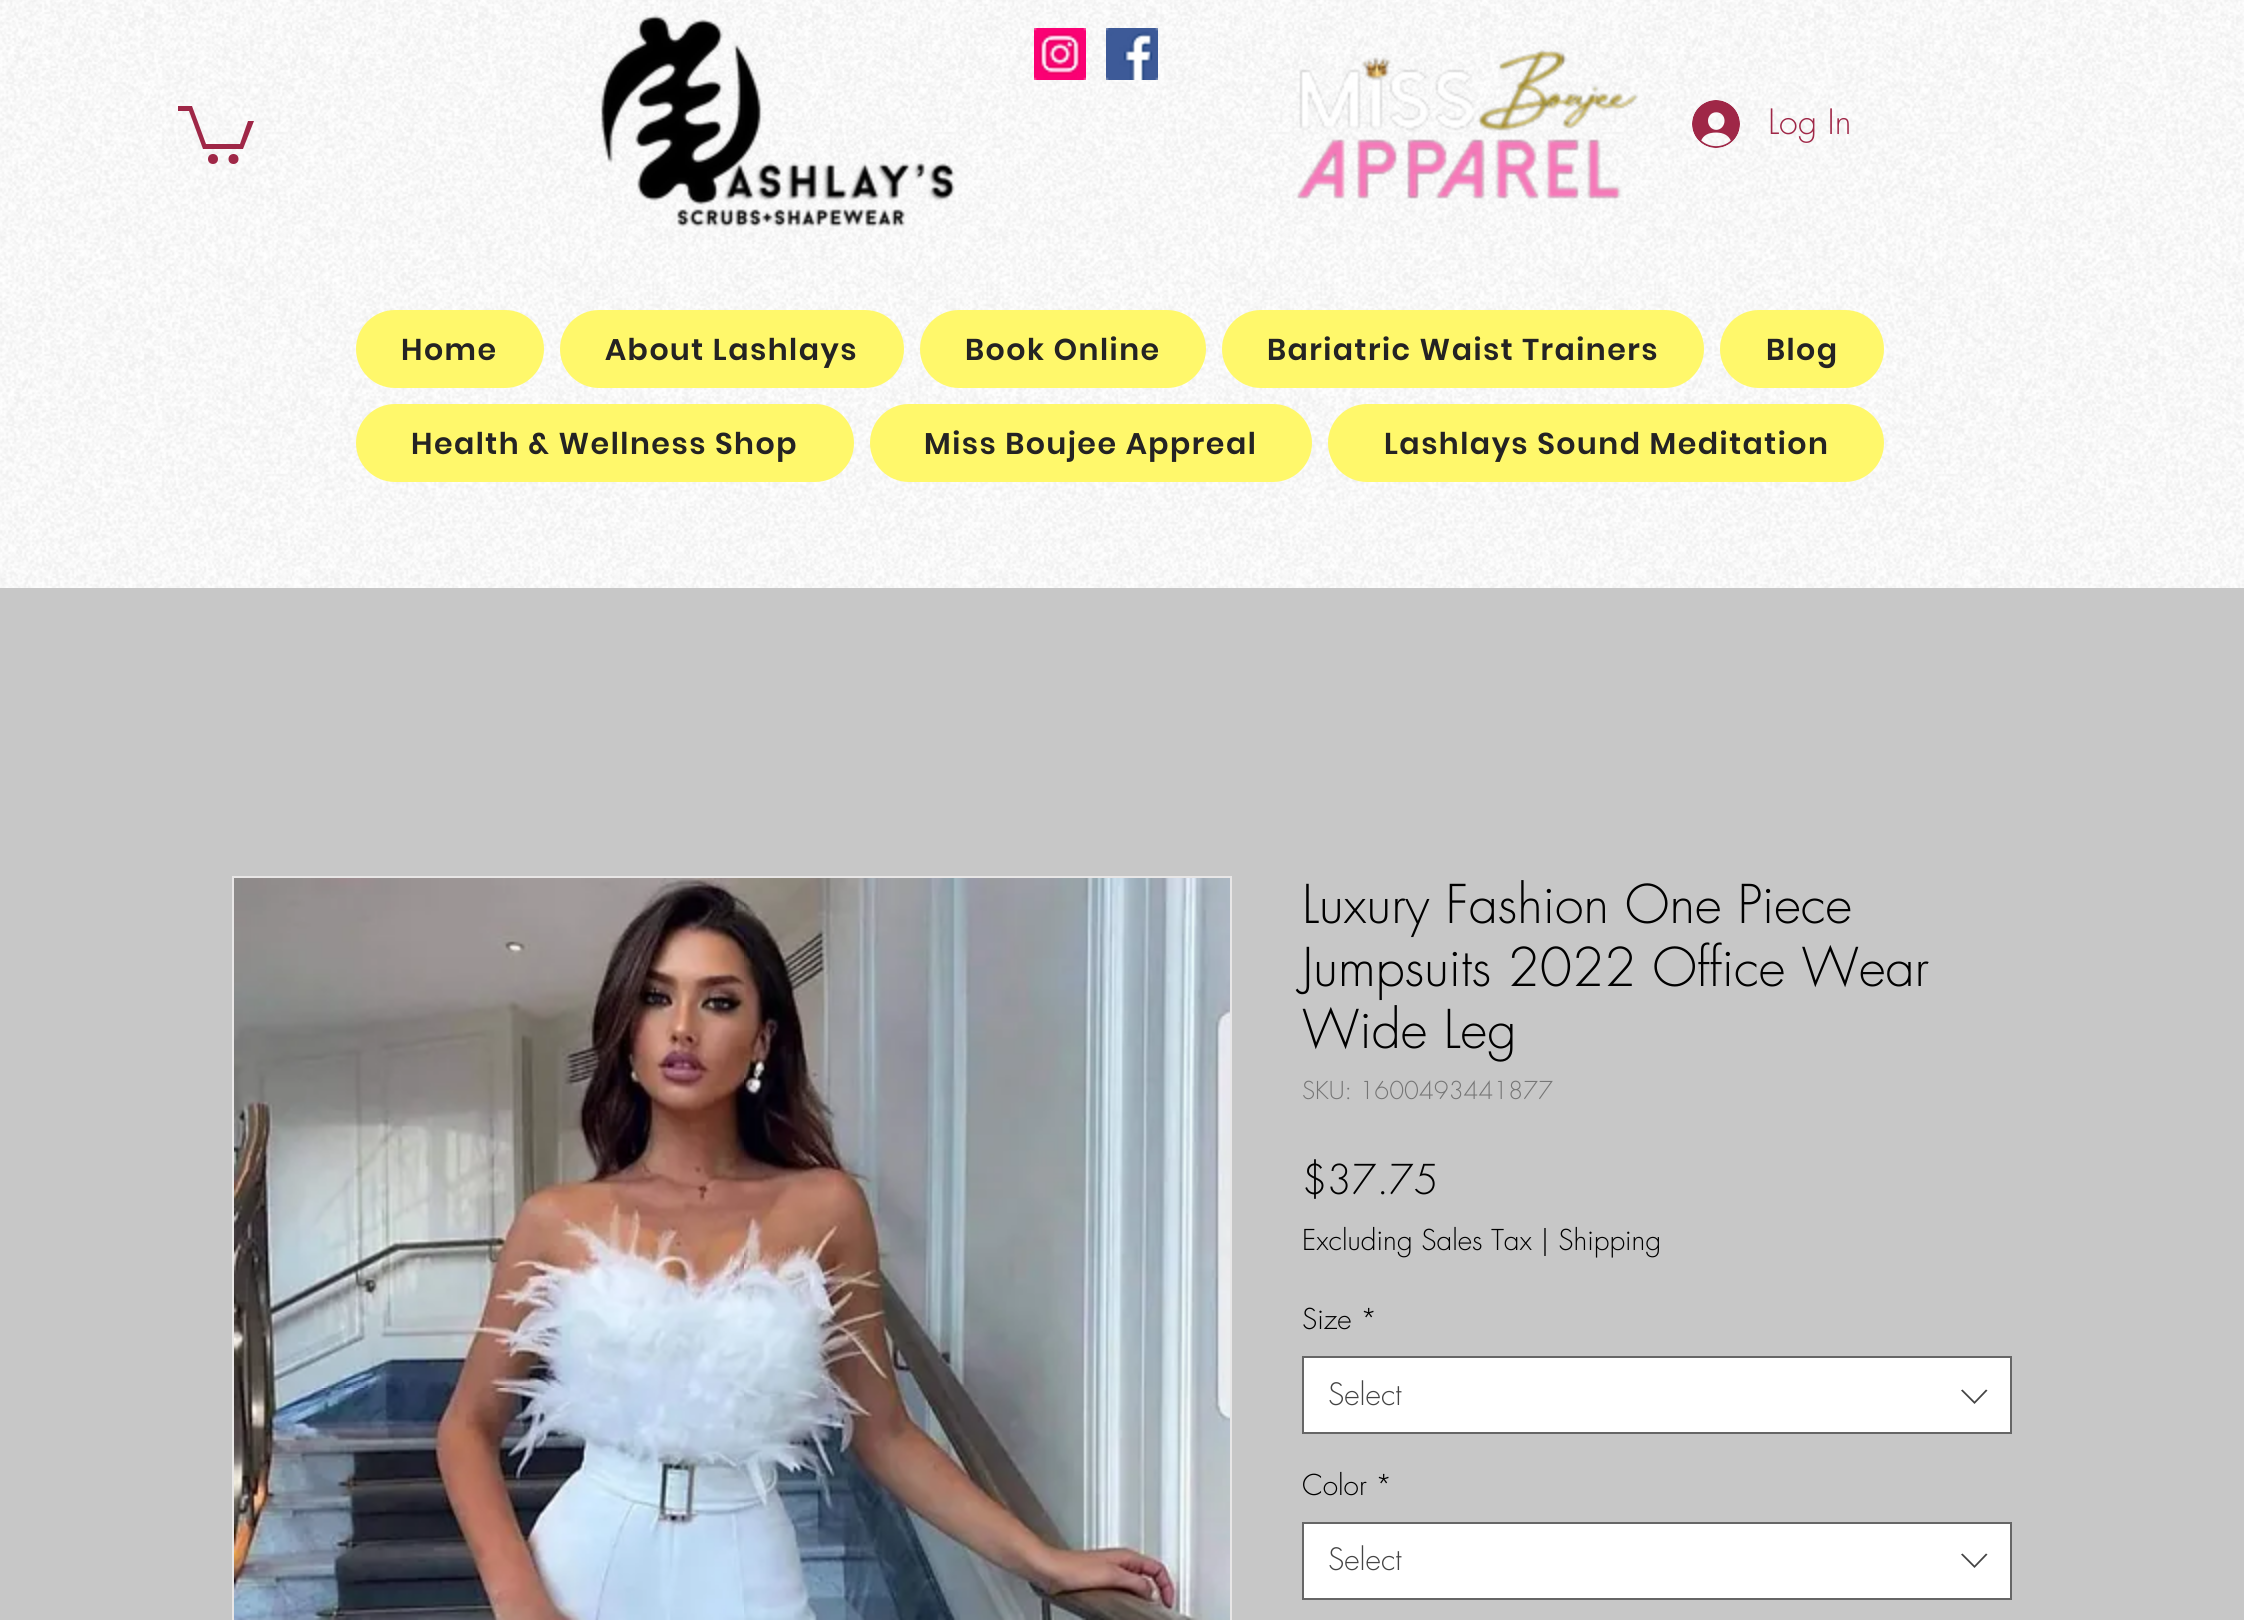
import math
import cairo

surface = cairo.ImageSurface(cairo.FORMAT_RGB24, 2244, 1620)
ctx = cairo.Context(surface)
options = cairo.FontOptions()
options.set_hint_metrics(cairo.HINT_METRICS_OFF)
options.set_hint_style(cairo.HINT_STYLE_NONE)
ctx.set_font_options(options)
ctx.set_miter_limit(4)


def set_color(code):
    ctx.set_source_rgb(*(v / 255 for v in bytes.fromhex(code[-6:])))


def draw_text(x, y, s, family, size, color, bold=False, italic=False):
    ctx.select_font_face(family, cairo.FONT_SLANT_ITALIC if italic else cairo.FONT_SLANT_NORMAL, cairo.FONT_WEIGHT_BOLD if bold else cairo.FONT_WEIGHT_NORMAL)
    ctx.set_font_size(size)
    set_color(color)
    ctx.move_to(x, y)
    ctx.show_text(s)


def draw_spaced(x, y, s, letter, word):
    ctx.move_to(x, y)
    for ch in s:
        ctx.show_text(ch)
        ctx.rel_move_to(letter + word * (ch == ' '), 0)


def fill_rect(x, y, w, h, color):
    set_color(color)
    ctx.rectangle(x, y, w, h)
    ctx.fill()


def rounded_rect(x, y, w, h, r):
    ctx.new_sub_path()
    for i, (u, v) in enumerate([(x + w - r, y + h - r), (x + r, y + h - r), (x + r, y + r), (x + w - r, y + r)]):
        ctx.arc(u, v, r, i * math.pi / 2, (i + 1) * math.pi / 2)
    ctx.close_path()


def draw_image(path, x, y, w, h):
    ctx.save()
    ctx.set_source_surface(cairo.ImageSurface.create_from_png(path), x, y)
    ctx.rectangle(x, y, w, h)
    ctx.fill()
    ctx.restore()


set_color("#c7c7c7")
ctx.paint()
fill_rect(0, 0, 2244, 588, "#ffffff")
draw_image("assets/img1.png", 0, 0, 2244, 588)
set_color("#9f2747")
ctx.new_path()
ctx.move_to(254, 121)
ctx.line_to(243, 149)
ctx.line_to(203, 149)
ctx.line_to(189, 111)
ctx.line_to(178, 111)
ctx.line_to(178, 106)
ctx.line_to(192, 106)
ctx.line_to(206, 144)
ctx.line_to(240, 144)
ctx.line_to(248, 121)
ctx.fill()
ctx.arc(233.5, 159, 5, 0, 2 * math.pi)
ctx.fill()
ctx.arc(213, 159, 5, 0, 2 * math.pi)
ctx.fill()
draw_image("assets/img2.png", 601, 15, 354, 212)
draw_image("assets/img3.png", 1034, 28, 52, 52)
draw_image("assets/img4.png", 1106, 28, 52, 52)
draw_image("assets/img5.png", 1296, 49, 342, 150)
draw_image("assets/img6.png", 1692, 100, 48, 48)
draw_text(1768, 134, "Log In", "futura Light", 34, "#9f2747")
set_color("#fff86b")
rounded_rect(356, 310, 188, 78, 39)
ctx.fill()
ctx.select_font_face("Poppins SemiBold")
ctx.set_font_size(30)
set_color("#242323")
draw_spaced(401, 360, "Home", 1.5, 0)
set_color("#fff86b")
rounded_rect(560, 310, 344, 78, 39)
ctx.fill()
set_color("#242323")
draw_spaced(605, 360, "About Lashlays", 1.5, 0)
set_color("#fff86b")
rounded_rect(920, 310, 286, 78, 39)
ctx.fill()
set_color("#242323")
draw_spaced(965, 360, "Book Online", 1.5, 0)
set_color("#fff86b")
rounded_rect(1222, 310, 482, 78, 39)
ctx.fill()
set_color("#242323")
draw_spaced(1267, 360, "Bariatric Waist Trainers", 1.5, 0)
set_color("#fff86b")
rounded_rect(1720, 310, 164, 78, 39)
ctx.fill()
set_color("#242323")
draw_spaced(1766, 360, "Blog", 1.5, 0)
set_color("#fff86b")
rounded_rect(356, 404, 498, 78, 39)
ctx.fill()
set_color("#242323")
draw_spaced(411, 454, "Health & Wellness Shop", 1.5, 0)
set_color("#fff86b")
rounded_rect(870, 404, 442, 78, 39)
ctx.fill()
set_color("#242323")
draw_spaced(924, 454, "Miss Boujee Appreal", 1.5, 0)
set_color("#fff86b")
rounded_rect(1328, 404, 556, 78, 39)
ctx.fill()
set_color("#242323")
draw_spaced(1384, 454, "Lashlays Sound Meditation", 1.5, 0)
ctx.rectangle(233, 877, 998, 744)
set_color("#e8e6e6")
ctx.stroke()
draw_image("assets/img7.png", 234, 878, 996, 742)
draw_text(1302, 923, "Luxury Fashion One Piece", "futura Light", 52, "#000000")
draw_text(1302, 986, "Jumpsuits 2022 Office Wear", "futura Light", 52, "#000000")
draw_text(1302, 1048, "Wide Leg", "futura Light", 52, "#000000")
draw_text(1302, 1099, "SKU: 1600493441877", "futura Light", 24, "#757575")
draw_text(1302, 1194, "$37.75", "futura Light", 40, "#000000")
draw_text(1302, 1250, "Excluding Sales Tax | Shipping", "futura Light", 28, "#000000")
draw_text(1302, 1329, "Size", "futura Light", 28, "#000000")
draw_text(1360, 1329, "*", "futura Light", 28, "#000000")
set_color("#ffffff")
ctx.rectangle(1303, 1357, 708, 76)
ctx.fill_preserve()
set_color("#666666")
ctx.stroke()
draw_text(1328, 1405, "Select", "futura Light", 30, "#444444")
ctx.set_fill_rule(cairo.FILL_RULE_EVEN_ODD)
ctx.new_path()
ctx.move_to(1986, 1389.5)
ctx.line_to(1987.5, 1390.5)
ctx.line_to(1974.5, 1404)
ctx.line_to(1961, 1390.5)
ctx.line_to(1962.5, 1389.5)
ctx.line_to(1974.5, 1401.5)
ctx.close_path()
ctx.fill()
draw_text(1302, 1495, "Color", "futura Light", 28, "#000000")
draw_text(1375, 1495, "*", "futura Light", 28, "#000000")
set_color("#ffffff")
ctx.rectangle(1303, 1523, 708, 76)
ctx.fill_preserve()
set_color("#666666")
ctx.stroke()
draw_text(1328, 1570, "Select", "futura Light", 30, "#444444")
ctx.new_path()
ctx.move_to(1986, 1553.5)
ctx.line_to(1987.5, 1554.5)
ctx.line_to(1974.5, 1568)
ctx.line_to(1961, 1554.5)
ctx.line_to(1962.5, 1553.5)
ctx.line_to(1974.5, 1565.5)
ctx.close_path()
ctx.fill()
surface.write_to_png("output.png")
